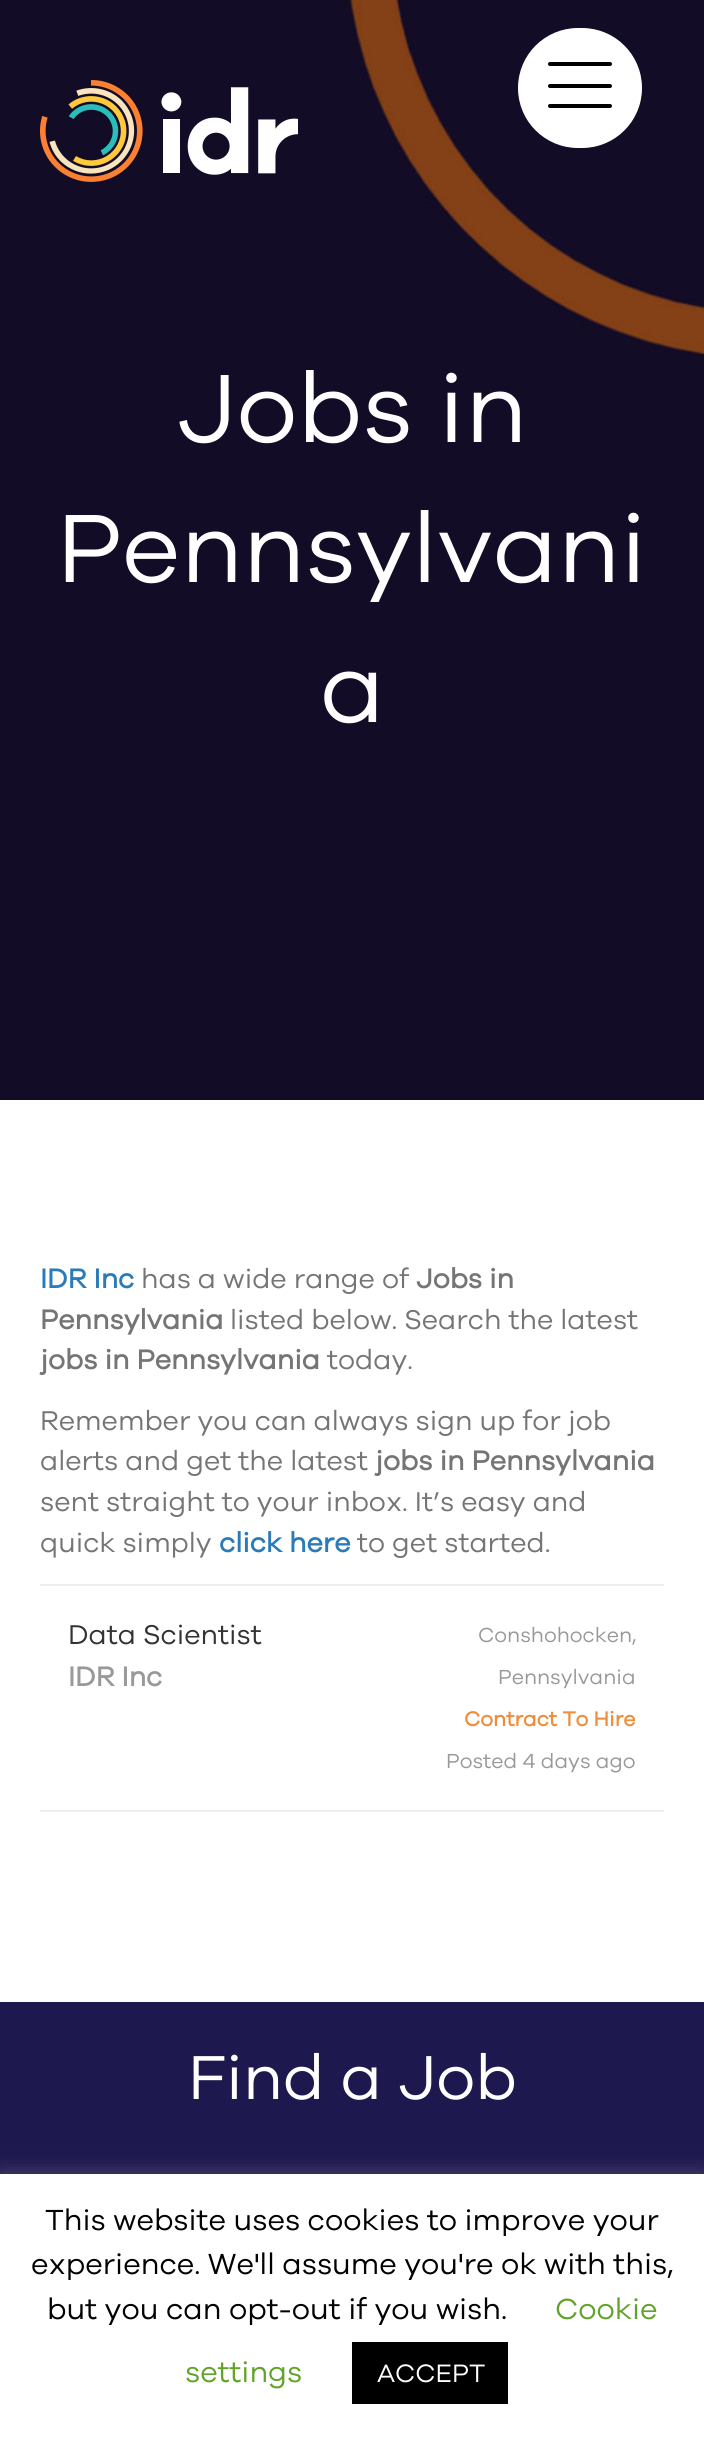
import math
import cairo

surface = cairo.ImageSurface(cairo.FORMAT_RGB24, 704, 2437)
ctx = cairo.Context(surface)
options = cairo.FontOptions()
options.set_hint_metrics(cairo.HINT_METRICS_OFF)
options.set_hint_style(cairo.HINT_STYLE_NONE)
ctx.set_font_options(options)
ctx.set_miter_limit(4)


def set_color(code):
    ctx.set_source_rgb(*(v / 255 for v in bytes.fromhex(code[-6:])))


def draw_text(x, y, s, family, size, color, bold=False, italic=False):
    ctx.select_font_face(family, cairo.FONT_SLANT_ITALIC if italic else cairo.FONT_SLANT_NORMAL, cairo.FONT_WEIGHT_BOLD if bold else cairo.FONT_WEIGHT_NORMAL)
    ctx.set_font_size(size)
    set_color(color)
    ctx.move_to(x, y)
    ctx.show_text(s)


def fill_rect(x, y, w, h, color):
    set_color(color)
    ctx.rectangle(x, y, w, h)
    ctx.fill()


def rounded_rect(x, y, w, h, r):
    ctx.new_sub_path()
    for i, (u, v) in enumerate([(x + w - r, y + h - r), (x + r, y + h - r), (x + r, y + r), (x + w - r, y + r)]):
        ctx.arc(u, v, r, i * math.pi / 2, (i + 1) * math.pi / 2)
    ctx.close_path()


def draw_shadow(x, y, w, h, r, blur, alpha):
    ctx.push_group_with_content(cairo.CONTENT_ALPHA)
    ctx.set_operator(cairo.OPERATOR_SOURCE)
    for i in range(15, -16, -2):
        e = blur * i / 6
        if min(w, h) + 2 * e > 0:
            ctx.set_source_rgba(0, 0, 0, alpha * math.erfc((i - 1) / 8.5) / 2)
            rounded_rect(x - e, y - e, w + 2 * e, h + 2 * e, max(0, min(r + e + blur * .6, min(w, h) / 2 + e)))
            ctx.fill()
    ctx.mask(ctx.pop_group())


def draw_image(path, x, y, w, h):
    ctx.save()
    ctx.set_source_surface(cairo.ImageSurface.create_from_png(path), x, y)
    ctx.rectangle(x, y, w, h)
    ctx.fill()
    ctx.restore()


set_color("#ffffff")
ctx.paint()
draw_image("assets/img2.png", 0, 0, 704, 1100)
draw_image("assets/img1.png", 40, 80, 258, 102)
set_color("#ffffff")
rounded_rect(518, 28, 124, 120, 60)
ctx.fill()
set_color("#000000")
rounded_rect(548, 84, 64, 4, 2)
ctx.fill()
rounded_rect(548, 62, 64, 4, 2)
ctx.fill()
rounded_rect(548, 104, 64, 4, 2)
ctx.fill()
draw_text(177, 442, "Jobs in", "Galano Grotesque", 100, "#ffffff")
draw_text(57, 582, "Pennsylvani", "Galano Grotesque", 100, "#ffffff")
draw_text(320, 722, "a", "Galano Grotesque", 100, "#ffffff")
draw_text(40, 1288, "IDR Inc", "Galano Grotesque", 28, "#2b7bb9", bold=True)
draw_text(141, 1288, "has a wide range of", "Galano Grotesque", 28, "#757575")
draw_text(416, 1288, "Jobs in", "Galano Grotesque", 28, "#757575", bold=True)
draw_text(40, 1329, "Pennsylvania", "Galano Grotesque", 28, "#757575", bold=True)
draw_text(230, 1329, "listed below. Search the latest", "Galano Grotesque", 28, "#757575")
draw_text(40, 1369, "jobs in Pennsylvania", "Galano Grotesque", 28, "#757575", bold=True)
draw_text(327, 1369, "today.", "Galano Grotesque", 28, "#757575")
draw_text(40, 1430, "Remember you can always sign up for job", "Galano Grotesque", 28, "#757575")
draw_text(40, 1470, "alerts and get the latest", "Galano Grotesque", 28, "#757575")
draw_text(375, 1470, "jobs in Pennsylvania", "Galano Grotesque", 28, "#757575", bold=True)
draw_text(40, 1511, "sent straight to your inbox. It’s easy and", "Galano Grotesque", 28, "#757575")
draw_text(40, 1552, "quick simply", "Galano Grotesque", 28, "#757575")
draw_text(219, 1552, "click here", "Galano Grotesque", 28, "#2b7bb9", bold=True)
draw_text(357, 1552, "to get started.", "Galano Grotesque", 28, "#757575")
fill_rect(40, 1584, 624, 2, "#eeeeee")
fill_rect(40, 1810, 624, 2, "#eeeeee")
draw_text(68, 1644, "Data Scientist", "Galano Grotesque", 28, "#333333")
draw_text(68, 1686, "IDR Inc", "Galano Grotesque", 28, "#999999", bold=True)
draw_text(478, 1642, "Conshohocken,", "Galano Grotesque", 21, "#999999")
draw_text(498, 1684, "Pennsylvania", "Galano Grotesque", 21, "#999999")
draw_text(464, 1726, "Contract To Hire", "Galano Grotesque", 21, "#f08d3c", bold=True)
draw_text(446, 1768, "Posted 4 days ago", "Galano Grotesque", 21, "#999999")
fill_rect(0, 2002, 704, 172, "#1d184d")
draw_text(188, 2099, "Find a Job", "Galano Grotesque", 64, "#ffffff")
set_color("#acabab")
draw_shadow(0, 2172, 704, 264, 0, 10, 0.3)
fill_rect(0, 2174, 704, 263, "#ffffff")
draw_text(45, 2230, "This website uses cookies to improve your", "Galano Grotesque", 30, "#000000")
draw_text(31, 2274, "experience. We'll assume you're ok with this,", "Galano Grotesque", 30, "#000000")
draw_text(47, 2319, "but you can opt-out if you wish.", "Galano Grotesque", 30, "#000000")
draw_text(555, 2319, "Cookie", "Galano Grotesque", 30, "#62a329")
draw_text(185, 2382, "settings", "Galano Grotesque", 30, "#62a329")
fill_rect(352, 2342, 156, 62, "#000000")
draw_text(377, 2382, "ACCEPT", "Galano Grotesque", 26, "#ffffff")
surface.write_to_png("output.png")
